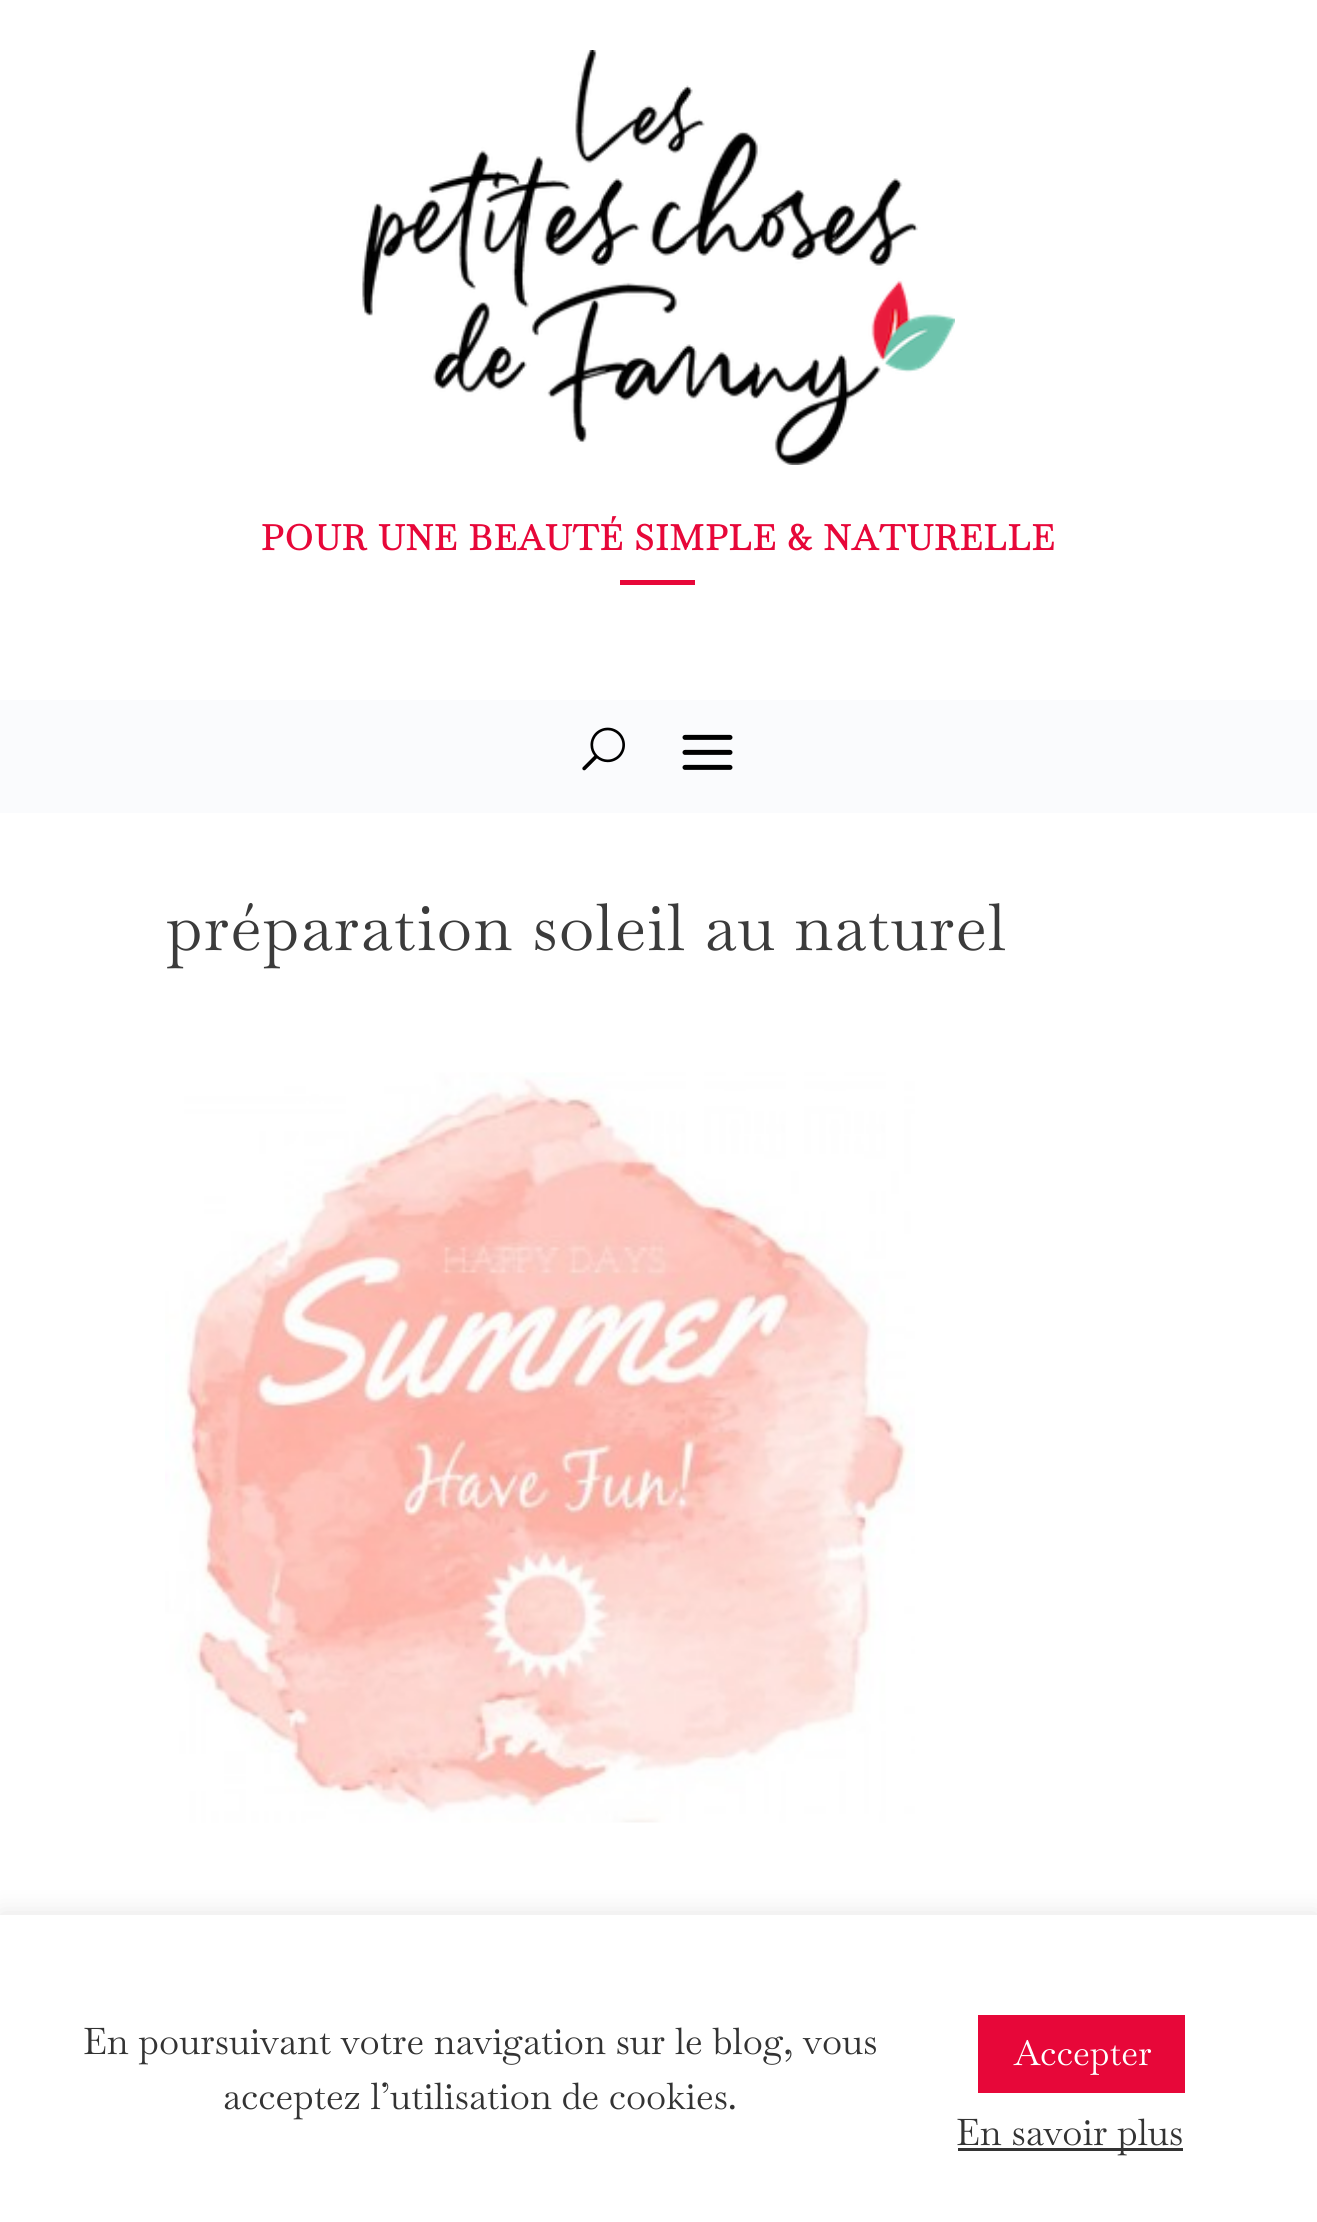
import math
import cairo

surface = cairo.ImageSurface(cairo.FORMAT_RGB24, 1317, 2222)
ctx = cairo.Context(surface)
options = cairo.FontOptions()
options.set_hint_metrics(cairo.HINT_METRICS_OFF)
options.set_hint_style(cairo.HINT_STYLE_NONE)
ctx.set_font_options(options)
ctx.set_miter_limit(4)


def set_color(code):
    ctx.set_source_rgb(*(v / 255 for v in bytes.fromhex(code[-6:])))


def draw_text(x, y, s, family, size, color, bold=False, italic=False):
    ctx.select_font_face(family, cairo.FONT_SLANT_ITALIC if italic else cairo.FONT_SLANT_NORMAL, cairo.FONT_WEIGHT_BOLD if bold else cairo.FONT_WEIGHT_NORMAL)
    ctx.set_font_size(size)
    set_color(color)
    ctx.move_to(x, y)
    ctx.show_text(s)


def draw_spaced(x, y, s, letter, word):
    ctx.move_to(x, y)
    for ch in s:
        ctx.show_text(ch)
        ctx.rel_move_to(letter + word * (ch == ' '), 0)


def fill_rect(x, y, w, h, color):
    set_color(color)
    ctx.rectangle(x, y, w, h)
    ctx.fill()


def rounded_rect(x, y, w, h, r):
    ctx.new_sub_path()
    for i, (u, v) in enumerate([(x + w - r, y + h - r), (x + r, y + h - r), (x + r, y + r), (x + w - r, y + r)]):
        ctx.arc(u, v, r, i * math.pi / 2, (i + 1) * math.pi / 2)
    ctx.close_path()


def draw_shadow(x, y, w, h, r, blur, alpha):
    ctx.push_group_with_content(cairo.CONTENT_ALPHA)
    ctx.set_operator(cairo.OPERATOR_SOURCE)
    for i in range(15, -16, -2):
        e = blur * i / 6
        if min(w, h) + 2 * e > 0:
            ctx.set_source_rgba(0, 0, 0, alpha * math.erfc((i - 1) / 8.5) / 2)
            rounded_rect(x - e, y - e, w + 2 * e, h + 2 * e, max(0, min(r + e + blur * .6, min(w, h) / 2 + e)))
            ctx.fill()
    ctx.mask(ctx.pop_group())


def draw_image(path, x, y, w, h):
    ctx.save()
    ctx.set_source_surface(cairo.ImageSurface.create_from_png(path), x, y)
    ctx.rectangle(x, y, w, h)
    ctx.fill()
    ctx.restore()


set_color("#ffffff")
ctx.paint()
draw_image("assets/img1.png", 362, 50, 593, 415)
ctx.select_font_face("Baskervville", cairo.FONT_SLANT_NORMAL, cairo.FONT_WEIGHT_BOLD)
ctx.set_font_size(35)
set_color("#e70739")
draw_spaced(261, 550, "POUR UNE BEAUTÉ SIMPLE & NATURELLE", 1.25, 0)
fill_rect(620, 580, 75, 5, "#e70739")
fill_rect(0, 700, 1317, 113, "#fafbfd")
draw_image("assets/img2.png", 582, 727, 43, 44)
draw_image("assets/img3.png", 682, 734, 51, 36)
ctx.select_font_face("Baskervville")
ctx.set_font_size(65)
set_color("#3b3b3b")
draw_spaced(166, 950, "préparation soleil au naturel", 1.25, 0)
draw_image("assets/img4.png", 165, 1072, 750, 751)
set_color("#acabab")
draw_shadow(0, 1913, 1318, 307, 0, 12.5, 0.3)
fill_rect(0, 1915, 1317, 307, "#ffffff")
draw_text(83, 2054, "En poursuivant votre navigation sur le blog, vous", "Baskervville", 36.7, "#333333")
draw_text(223, 2109, "acceptez l’utilisation de cookies.", "Baskervville", 36.7, "#333333")
fill_rect(978, 2015, 207, 78, "#e70739")
draw_text(1014, 2065, "Accepter", "Baskervville", 35, "#ffffff")
fill_rect(958, 2148, 225, 3, "#333333")
draw_text(956, 2145, "En savoir plus", "Baskervville", 36.7, "#333333")
surface.write_to_png("output.png")
